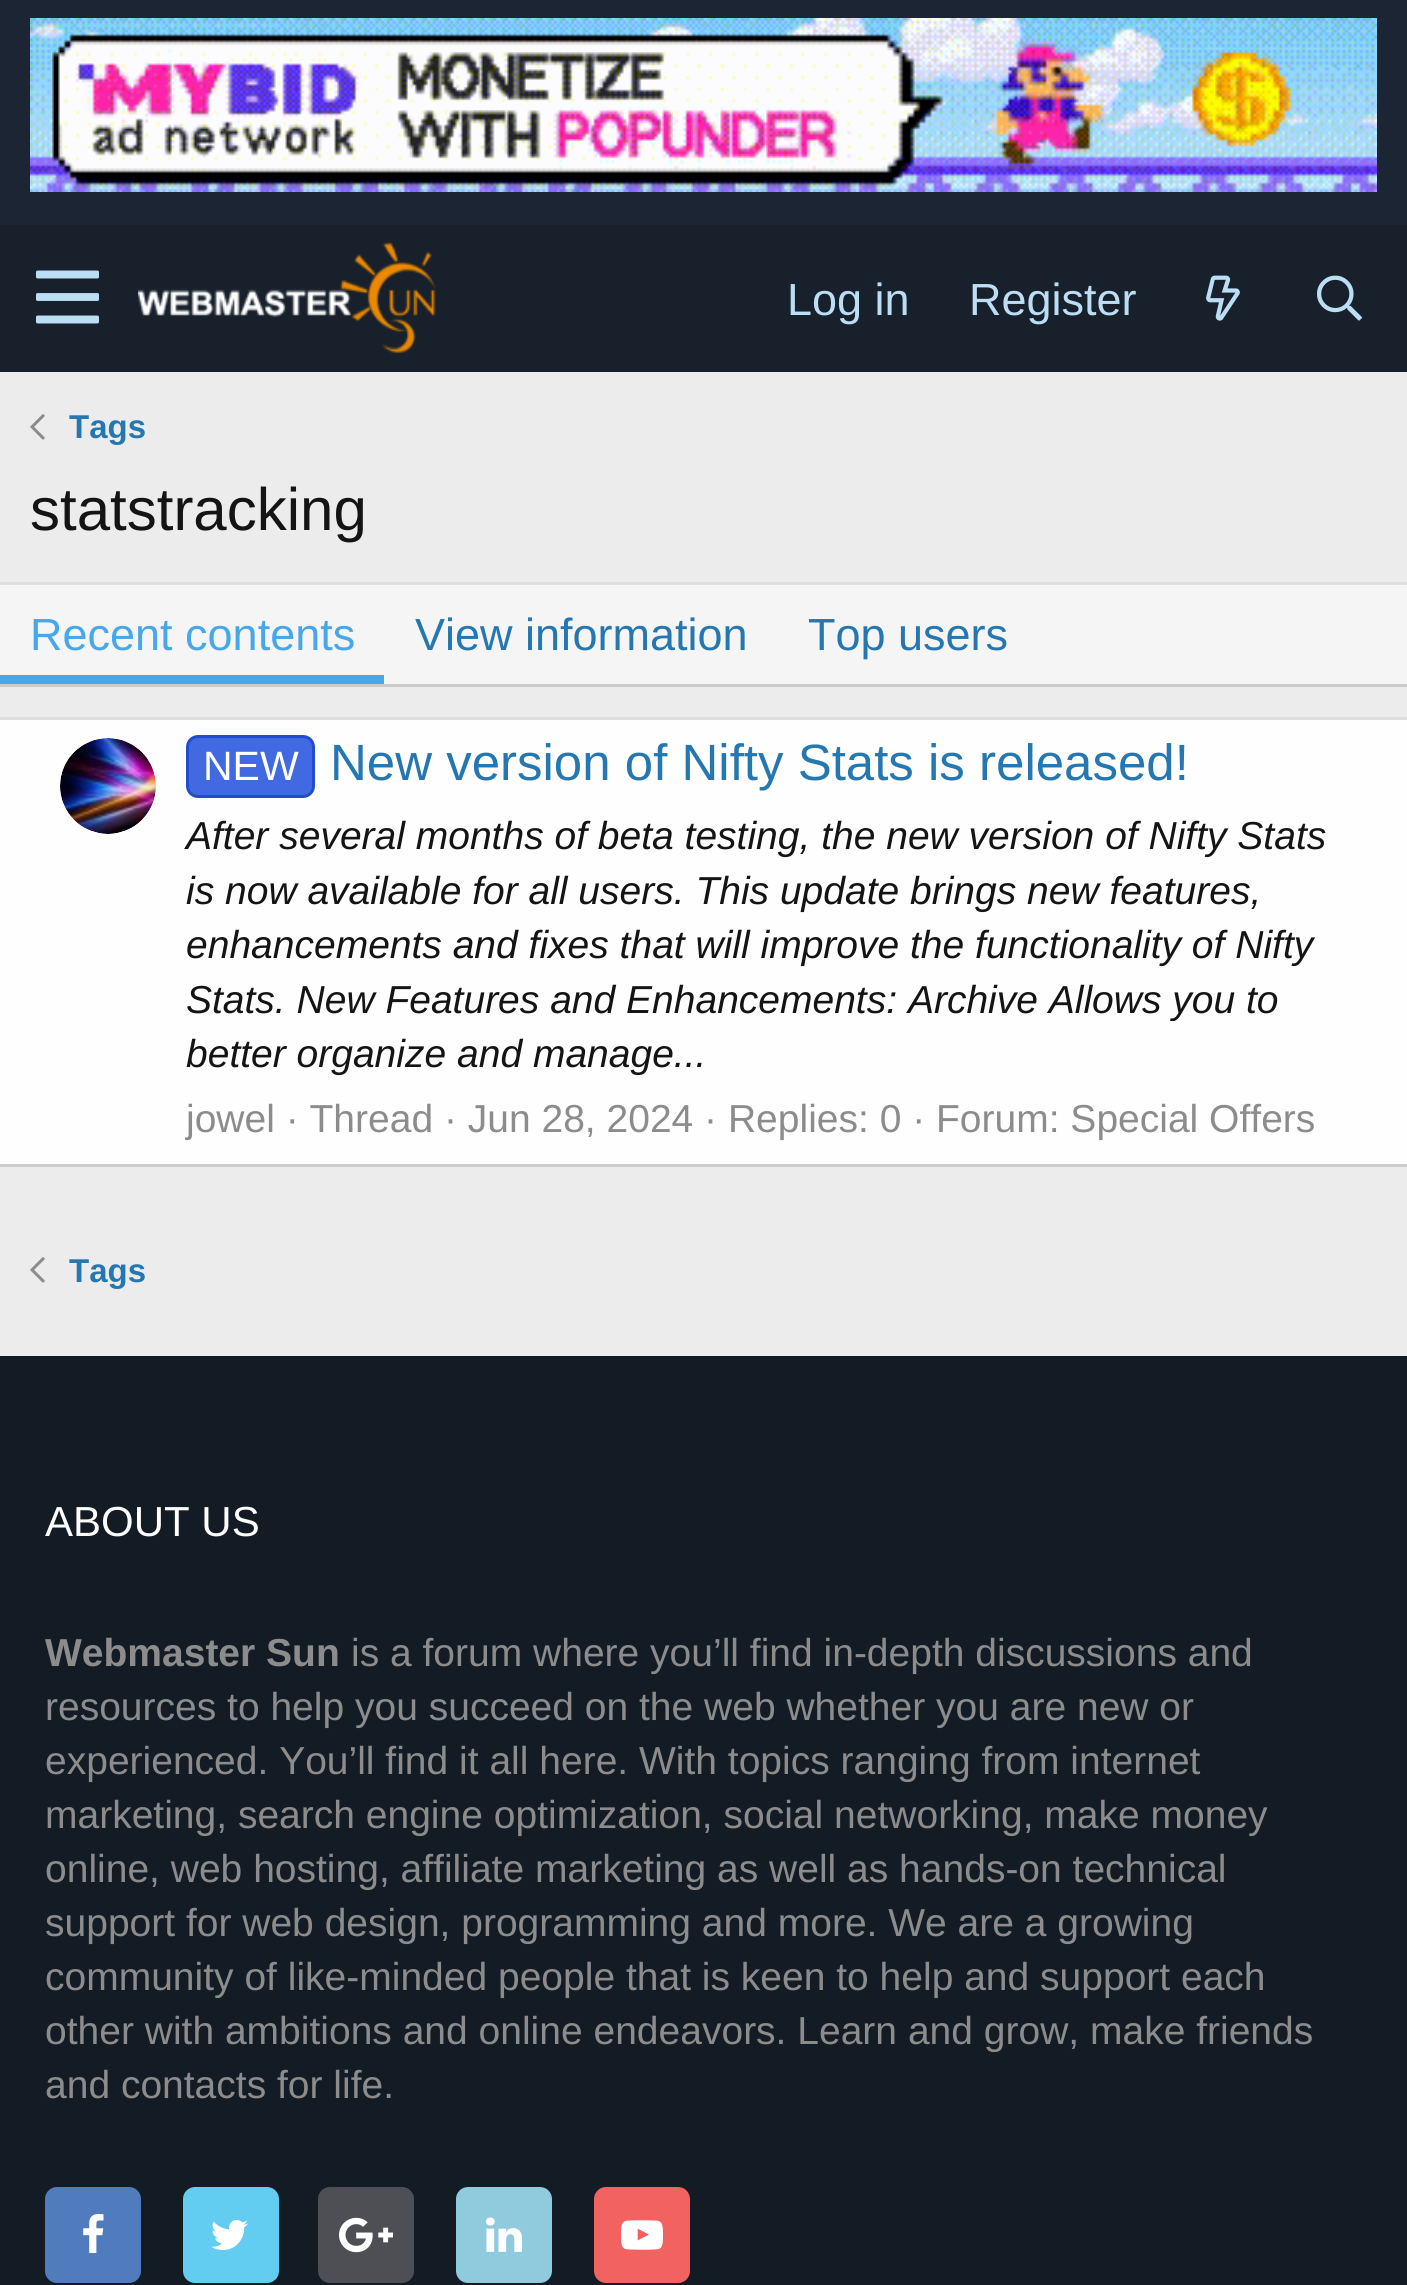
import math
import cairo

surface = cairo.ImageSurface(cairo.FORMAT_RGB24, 1407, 2285)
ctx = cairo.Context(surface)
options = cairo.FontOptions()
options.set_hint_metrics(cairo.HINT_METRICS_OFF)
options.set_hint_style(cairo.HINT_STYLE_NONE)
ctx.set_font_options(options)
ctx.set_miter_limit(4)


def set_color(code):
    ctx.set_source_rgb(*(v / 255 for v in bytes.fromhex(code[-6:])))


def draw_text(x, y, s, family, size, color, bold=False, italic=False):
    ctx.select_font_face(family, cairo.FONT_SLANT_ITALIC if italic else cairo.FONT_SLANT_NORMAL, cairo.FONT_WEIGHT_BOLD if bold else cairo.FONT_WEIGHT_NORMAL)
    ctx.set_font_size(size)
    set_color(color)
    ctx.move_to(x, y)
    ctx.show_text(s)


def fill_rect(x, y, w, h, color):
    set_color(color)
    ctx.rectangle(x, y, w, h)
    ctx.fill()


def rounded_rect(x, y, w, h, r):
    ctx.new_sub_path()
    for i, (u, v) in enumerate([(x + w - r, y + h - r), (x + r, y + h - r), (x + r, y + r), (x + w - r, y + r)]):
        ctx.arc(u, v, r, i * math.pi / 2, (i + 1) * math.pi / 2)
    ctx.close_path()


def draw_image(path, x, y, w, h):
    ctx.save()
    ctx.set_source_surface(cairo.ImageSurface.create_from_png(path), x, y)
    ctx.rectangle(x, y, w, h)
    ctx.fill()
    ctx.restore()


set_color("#ececec")
ctx.paint()
fill_rect(0, 0, 1407, 225, "#1b2534")
draw_image("assets/img1.png", 30, 18, 1347, 174)
fill_rect(0, 225, 1407, 147, "#17202b")
draw_image("assets/img2.png", 36, 270, 63, 54)
draw_image("assets/img3.png", 138, 241, 298, 113)
draw_text(787, 315, "Log in", "Liberation Sans", 45, "#bcdef5")
draw_text(969, 315, "Register", "Liberation Sans", 45, "#bcdef5")
draw_image("assets/img4.png", 1206, 275, 34, 46)
draw_image("assets/img5.png", 1317, 275, 45, 46)
draw_image("assets/img6.png", 30, 414, 15, 26)
draw_text(69, 438, "Tags", "Liberation Sans", 33, "#2577b1", bold=True)
draw_text(30, 530, "statstracking", "Liberation Sans", 60, "#141414")
fill_rect(0, 585, 1407, 99, "#f5f5f5")
fill_rect(0, 582, 1407, 3, "#dfdfdf")
fill_rect(0, 684, 1407, 3, "#cbcbcb")
fill_rect(0, 675, 384, 9, "#47a7eb")
draw_text(30, 650, "Recent contents", "Liberation Sans", 45, "#47a7eb")
draw_text(415, 650, "View information", "Liberation Sans", 45, "#2577b1")
draw_text(808, 650, "Top users", "Liberation Sans", 45, "#2577b1")
fill_rect(0, 720, 1407, 444, "#fefefe")
fill_rect(0, 717, 1407, 3, "#dfdfdf")
fill_rect(0, 1164, 1407, 3, "#cbcbcb")
draw_image("assets/img7.png", 60, 738, 96, 96)
set_color("#4169e1")
rounded_rect(187.5, 736.5, 126, 60, 10.5)
ctx.fill_preserve()
set_color("#214cce")
ctx.set_line_width(3)
ctx.stroke()
draw_text(203, 780, "NEW", "Liberation Sans", 41, "#ffffff")
draw_text(330, 780, "New version of Nifty Stats is released!", "Liberation Sans", 51, "#2577b1")
draw_text(186, 849, "After several months of beta testing, the new version of Nifty Stats", "Liberation Sans", 39, "#141414", italic=True)
draw_text(186, 904, "is now available for all users. This update brings new features,", "Liberation Sans", 39, "#141414", italic=True)
draw_text(186, 958, "enhancements and fixes that will improve the functionality of Nifty", "Liberation Sans", 39, "#141414", italic=True)
draw_text(186, 1013, "Stats. New Features and Enhancements: Archive Allows you to", "Liberation Sans", 39, "#141414", italic=True)
draw_text(186, 1067, "better organize and manage...", "Liberation Sans", 39, "#141414", italic=True)
draw_text(186, 1132, "jowel · Thread · Jun 28, 2024 · Replies: 0 · Forum: Special Offers", "Liberation Sans", 39, "#8c8c8c")
draw_image("assets/img6.png", 30, 1257, 15, 26)
draw_text(69, 1282, "Tags", "Liberation Sans", 33, "#2577b1", bold=True)
fill_rect(0, 1356, 1407, 929, "#131b24")
draw_text(45, 1536, "ABOUT US", "Liberation Sans", 42, "#ffffff")
draw_text(45, 1666, "Webmaster Sun", "Liberation Sans", 39, "#8c8c8c", bold=True)
draw_text(351, 1666, "is a forum where you’ll find in-depth discussions and", "Liberation Sans", 39, "#8c8c8c")
draw_text(45, 1720, "resources to help you succeed on the web whether you are new or", "Liberation Sans", 39, "#8c8c8c")
draw_text(45, 1774, "experienced. You’ll find it all here. With topics ranging from internet", "Liberation Sans", 39, "#8c8c8c")
draw_text(45, 1828, "marketing, search engine optimization, social networking, make money", "Liberation Sans", 39, "#8c8c8c")
draw_text(45, 1882, "online, web hosting, affiliate marketing as well as hands-on technical", "Liberation Sans", 39, "#8c8c8c")
draw_text(45, 1936, "support for web design, programming and more. We are a growing", "Liberation Sans", 39, "#8c8c8c")
draw_text(45, 1990, "community of like-minded people that is keen to help and support each", "Liberation Sans", 39, "#8c8c8c")
draw_text(45, 2044, "other with ambitions and online endeavors. Learn and grow, make friends", "Liberation Sans", 39, "#8c8c8c")
draw_text(45, 2098, "and contacts for life.", "Liberation Sans", 39, "#8c8c8c")
set_color("#507cbe")
rounded_rect(45, 2187, 96, 96, 12)
ctx.fill()
draw_image("assets/img8.png", 83, 2214, 21, 39)
set_color("#63cdf1")
rounded_rect(183, 2187, 96, 96, 12)
ctx.fill()
draw_image("assets/img9.png", 211, 2220, 37, 30)
set_color("#4d4f54")
rounded_rect(318, 2187, 96, 96, 12)
ctx.fill()
draw_image("assets/img10.png", 339, 2217, 54, 36)
set_color("#90cadd")
rounded_rect(456, 2187, 96, 96, 12)
ctx.fill()
draw_image("assets/img11.png", 486, 2217, 36, 35)
set_color("#f16261")
rounded_rect(594, 2187, 96, 96, 12)
ctx.fill()
draw_image("assets/img12.png", 621, 2220, 42, 30)
surface.write_to_png("output.png")
